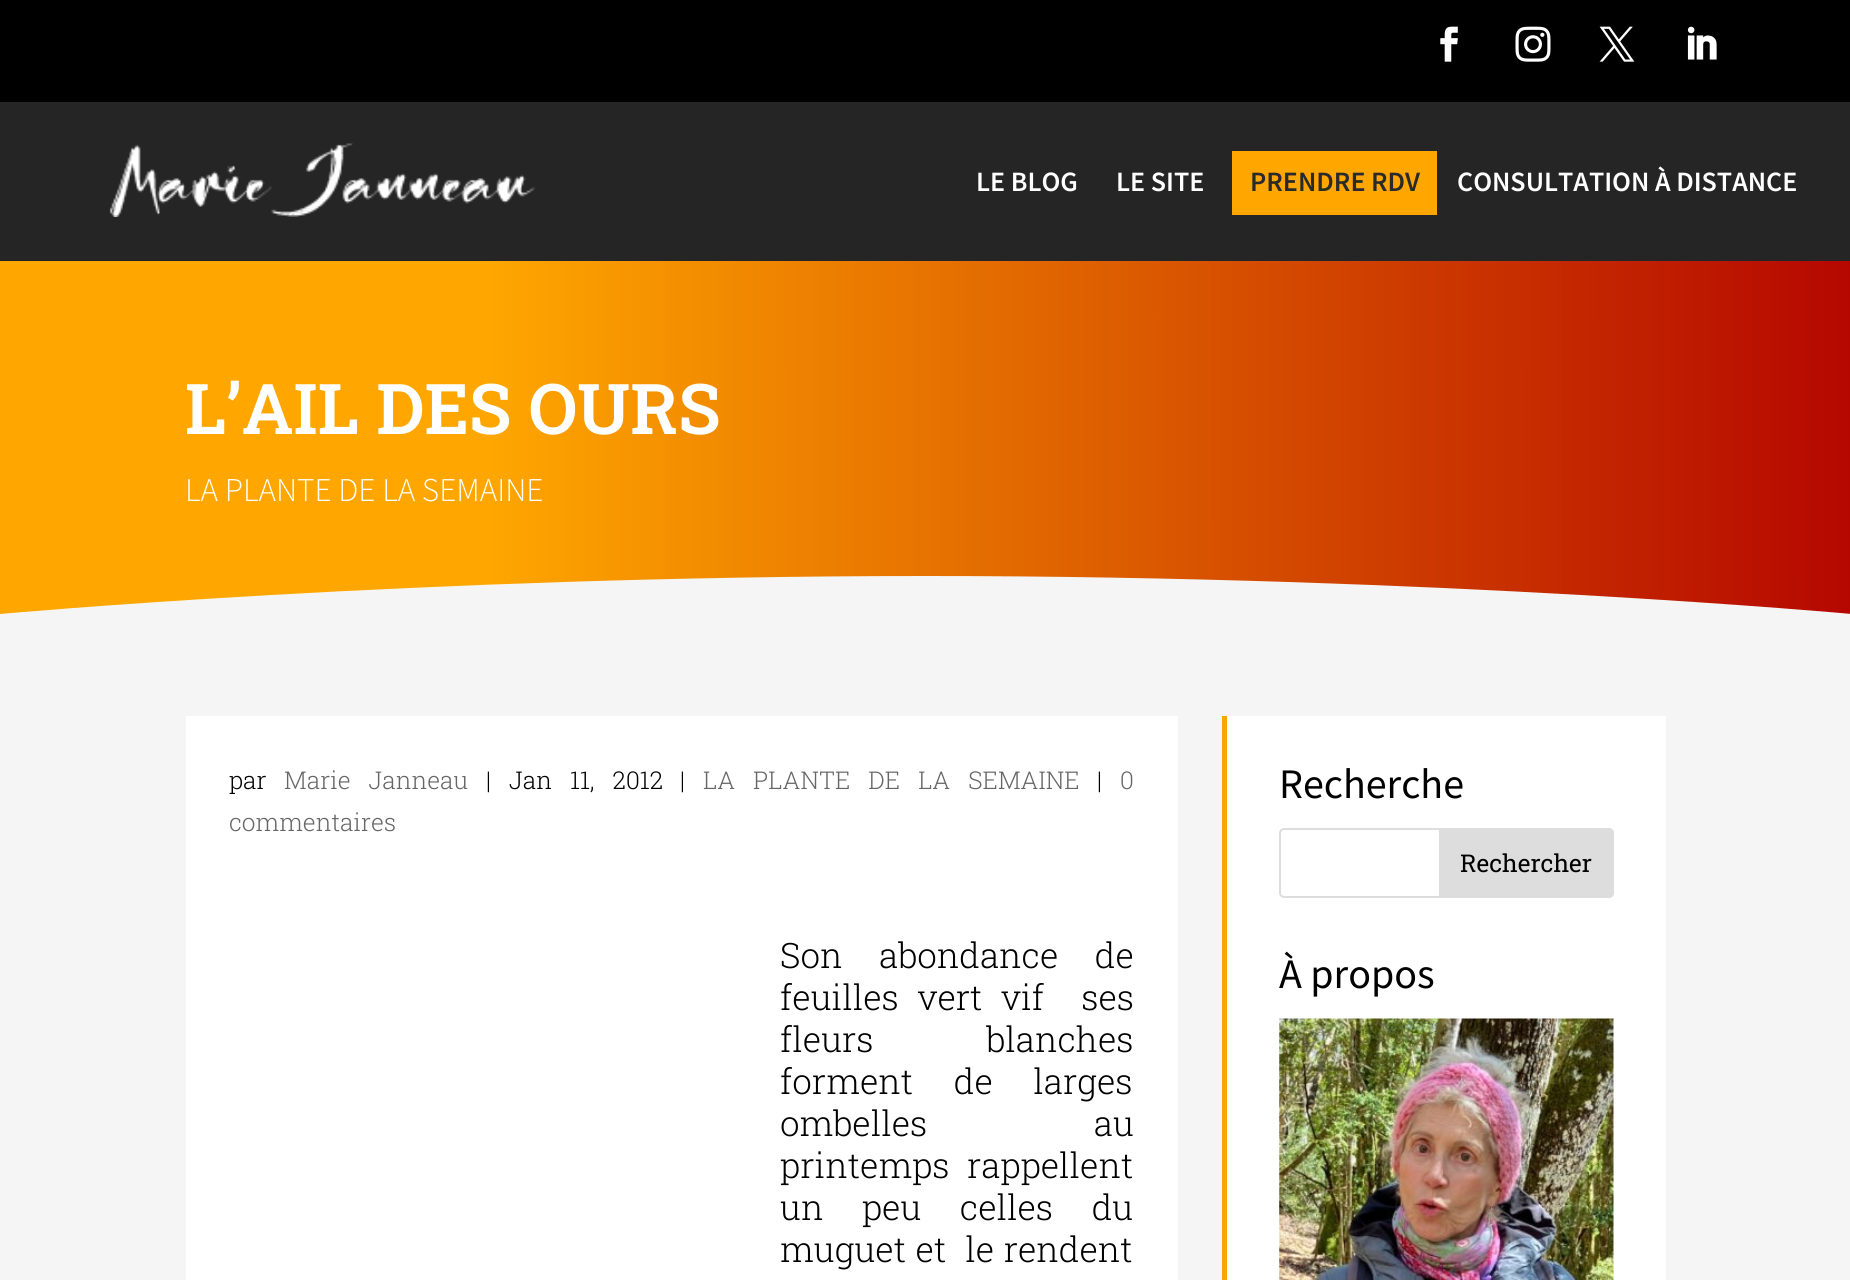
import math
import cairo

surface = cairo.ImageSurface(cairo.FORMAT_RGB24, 1850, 1280)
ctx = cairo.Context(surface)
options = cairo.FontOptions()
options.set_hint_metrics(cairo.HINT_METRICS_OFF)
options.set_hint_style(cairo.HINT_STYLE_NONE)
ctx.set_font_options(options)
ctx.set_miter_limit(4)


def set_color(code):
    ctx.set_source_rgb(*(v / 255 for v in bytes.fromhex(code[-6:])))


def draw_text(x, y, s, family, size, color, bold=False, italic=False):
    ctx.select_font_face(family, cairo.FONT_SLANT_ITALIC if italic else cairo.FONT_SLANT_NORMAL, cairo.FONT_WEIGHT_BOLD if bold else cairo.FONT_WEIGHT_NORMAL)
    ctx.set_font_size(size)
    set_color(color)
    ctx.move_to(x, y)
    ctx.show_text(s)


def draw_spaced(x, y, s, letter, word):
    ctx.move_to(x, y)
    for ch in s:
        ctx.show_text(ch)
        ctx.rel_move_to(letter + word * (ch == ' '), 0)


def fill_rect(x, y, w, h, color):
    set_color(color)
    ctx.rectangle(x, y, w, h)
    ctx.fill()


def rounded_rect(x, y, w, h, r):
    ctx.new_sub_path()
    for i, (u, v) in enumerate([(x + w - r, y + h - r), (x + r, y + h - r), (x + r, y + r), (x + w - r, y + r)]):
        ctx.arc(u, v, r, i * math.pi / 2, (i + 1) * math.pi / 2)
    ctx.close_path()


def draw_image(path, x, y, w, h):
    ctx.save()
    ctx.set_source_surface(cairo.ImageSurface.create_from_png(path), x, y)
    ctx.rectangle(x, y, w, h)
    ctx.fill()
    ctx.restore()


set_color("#f5f5f5")
ctx.paint()
fill_rect(0, 0, 1850, 102, "#000000")
draw_image("assets/img1.png", 1440, 26, 18, 36)
draw_image("assets/img2.png", 1515, 26, 36, 36)
draw_image("assets/img3.png", 1599, 26, 36, 36)
draw_image("assets/img4.png", 1687, 26, 30, 34)
fill_rect(0, 102, 1850, 159, "#252525")
draw_image("assets/img5.png", 109, 142, 427, 75)
draw_text(976, 191, "LE BLOG", "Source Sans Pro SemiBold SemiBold", 28, "#ffffff")
draw_text(1116, 191, "LE SITE", "Source Sans Pro SemiBold SemiBold", 28, "#ffffff")
fill_rect(1232, 151, 205, 64, "#ffa700")
draw_text(1250, 191, "PRENDRE RDV", "Source Sans Pro SemiBold SemiBold", 28, "#2a2a2a")
draw_text(1457, 191, "CONSULTATION À DISTANCE", "Source Sans Pro SemiBold SemiBold", 28, "#ffffff")
gradient = cairo.LinearGradient(0, 438, 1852, 437)
gradient.add_color_stop_rgba(0.26, 1, 0.655, 0, 1)
gradient.add_color_stop_rgba(1, 0.71, 0.027, 0, 1)
ctx.set_source(gradient)
ctx.rectangle(0, 261, 1850, 353)
ctx.fill()
draw_text(185, 434, "L’AIL DES OURS", "Roboto Slab SemiBold", 70, "#ffffff")
draw_text(185, 501, "LA PLANTE DE LA SEMAINE", "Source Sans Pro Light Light", 33.25, "#ffffff")
set_color("#f5f5f5")
ctx.new_path()
ctx.move_to(926, 576)
ctx.curve_to(1437, 576, 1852, 614, 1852, 614)
ctx.line_to(0, 614)
ctx.curve_to(0, 614, 414, 576, 926, 576)
ctx.close_path()
ctx.fill()
fill_rect(186, 716, 992, 564, "#ffffff")
draw_text(229, 789, "par", "Roboto Slab Light", 24.5, "#000000")
set_color("#666666")
draw_spaced(284, 789, "Marie Janneau", 0, 12)
draw_text(486, 789, "|", "Roboto Slab Light", 24.5, "#000000")
draw_spaced(509, 789, "Jan 11, 2012", 0, 12)
draw_text(680, 789, "|", "Roboto Slab Light", 24.5, "#000000")
set_color("#666666")
draw_spaced(703, 789, "LA PLANTE DE LA SEMAINE", 0, 12)
draw_text(1097, 789, "|", "Roboto Slab Light", 24.5, "#000000")
draw_text(1120, 789, "0", "Roboto Slab Light", 24.5, "#666666")
draw_text(229, 831, "commentaires", "Roboto Slab Light", 24.5, "#666666")
ctx.set_font_size(35)
set_color("#000000")
draw_spaced(780, 968, "Son abondance de", 0, 28)
draw_spaced(780, 1010, "feuilles vert vif  ses", 0, 10)
draw_spaced(780, 1052, "fleurs blanches", 0, 104)
draw_spaced(780, 1094, "forment de larges", 0, 32)
draw_spaced(780, 1136, "ombelles au", 0, 158)
draw_text(780, 1178, "printemps", "Roboto Slab Light", 35, "#000000")
draw_text(967, 1178, "rappellent", "Roboto Slab Light", 35, "#000000")
draw_spaced(780, 1220, "un peu celles du", 0, 30)
draw_spaced(780, 1262, "muguet et  le rendent", 0, 1)
fill_rect(1227, 716, 439, 564, "#ffffff")
fill_rect(1222, 716, 5, 564, "#fba600")
draw_text(1279, 798, "Recherche", "Source Sans Pro", 42, "#000000")
rounded_rect(1280, 829, 333, 68, 4)
set_color("#dddddd")
ctx.stroke()
ctx.new_path()
ctx.move_to(1440, 829)
ctx.line_to(1609, 829)
ctx.curve_to(1611, 829, 1613, 831, 1613, 833)
ctx.line_to(1613, 893)
ctx.curve_to(1613, 895, 1611, 897, 1609, 897)
ctx.line_to(1440, 897)
ctx.close_path()
ctx.fill_preserve()
ctx.stroke()
draw_text(1460, 872, "Rechercher", "Roboto Slab", 24.5, "#000000")
draw_text(1279, 988, "À propos", "Source Sans Pro", 42, "#000000")
draw_image("assets/img6.png", 1279, 1018, 335, 262)
surface.write_to_png("output.png")
